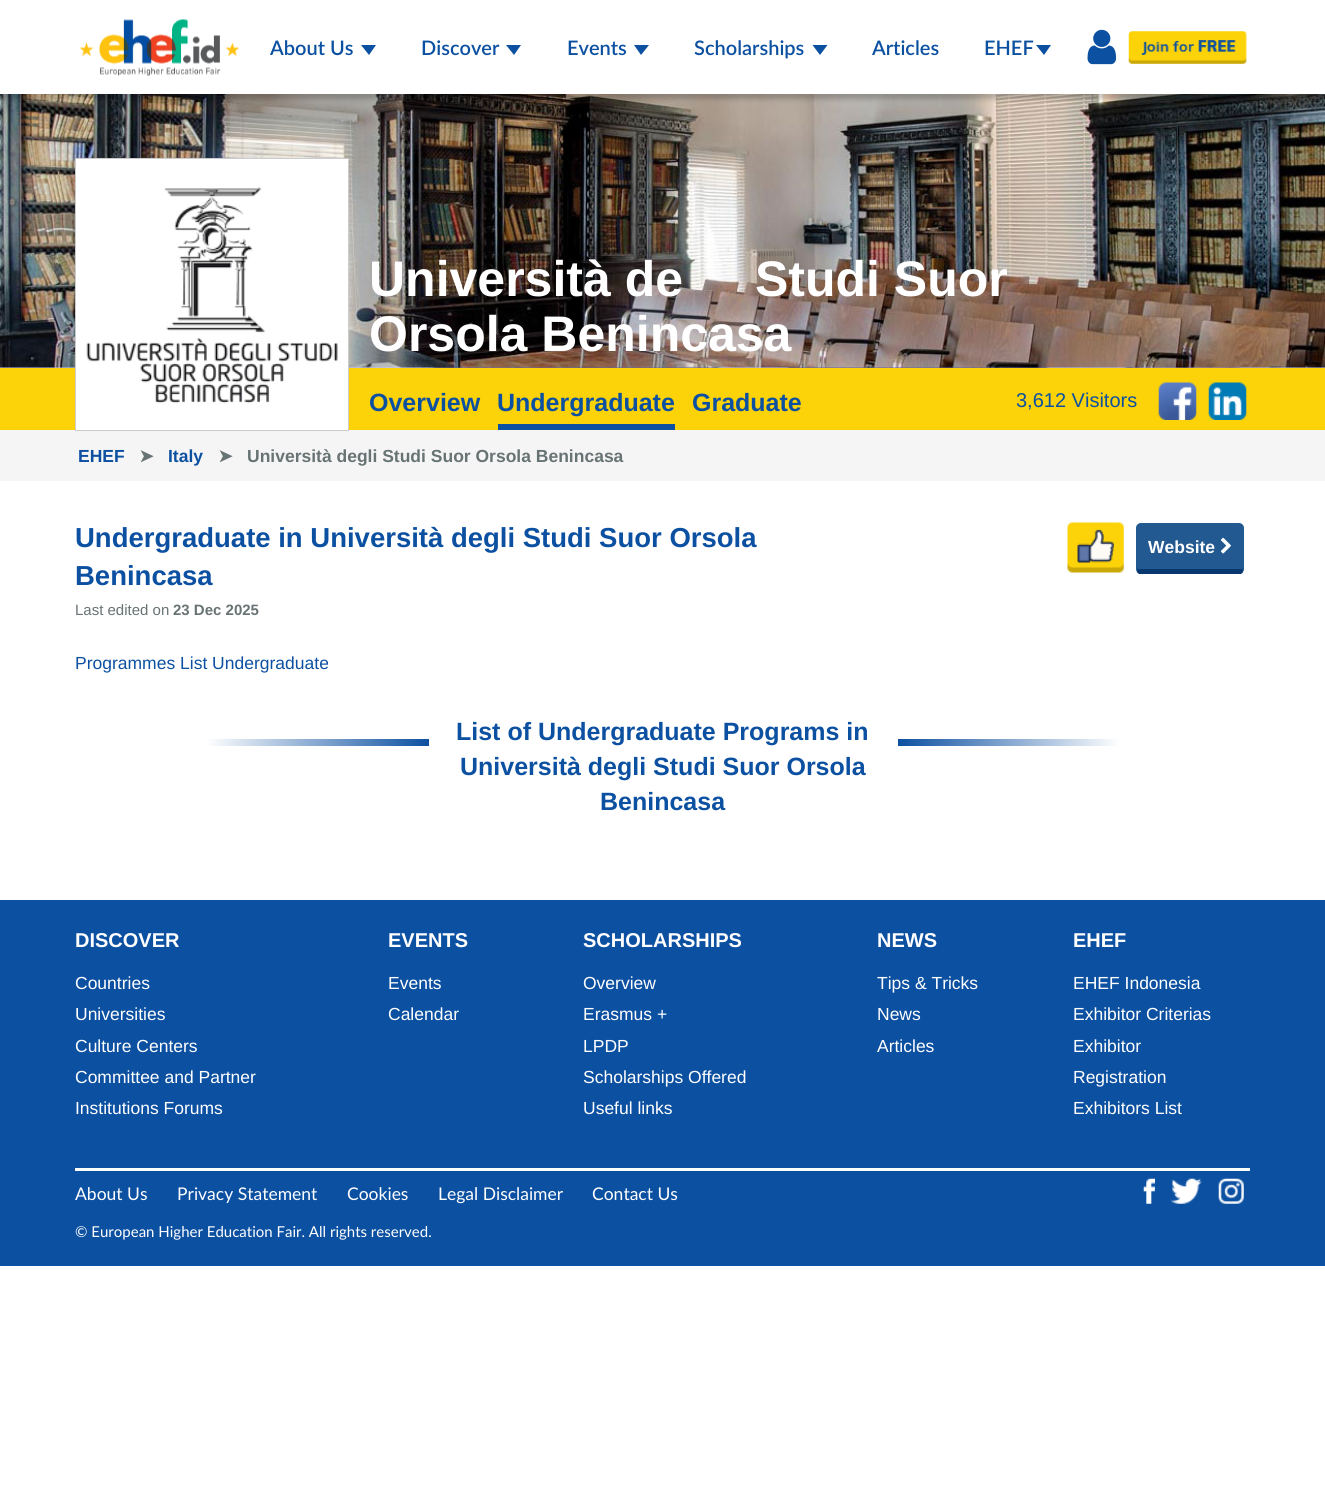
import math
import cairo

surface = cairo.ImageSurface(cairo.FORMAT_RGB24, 1325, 1503)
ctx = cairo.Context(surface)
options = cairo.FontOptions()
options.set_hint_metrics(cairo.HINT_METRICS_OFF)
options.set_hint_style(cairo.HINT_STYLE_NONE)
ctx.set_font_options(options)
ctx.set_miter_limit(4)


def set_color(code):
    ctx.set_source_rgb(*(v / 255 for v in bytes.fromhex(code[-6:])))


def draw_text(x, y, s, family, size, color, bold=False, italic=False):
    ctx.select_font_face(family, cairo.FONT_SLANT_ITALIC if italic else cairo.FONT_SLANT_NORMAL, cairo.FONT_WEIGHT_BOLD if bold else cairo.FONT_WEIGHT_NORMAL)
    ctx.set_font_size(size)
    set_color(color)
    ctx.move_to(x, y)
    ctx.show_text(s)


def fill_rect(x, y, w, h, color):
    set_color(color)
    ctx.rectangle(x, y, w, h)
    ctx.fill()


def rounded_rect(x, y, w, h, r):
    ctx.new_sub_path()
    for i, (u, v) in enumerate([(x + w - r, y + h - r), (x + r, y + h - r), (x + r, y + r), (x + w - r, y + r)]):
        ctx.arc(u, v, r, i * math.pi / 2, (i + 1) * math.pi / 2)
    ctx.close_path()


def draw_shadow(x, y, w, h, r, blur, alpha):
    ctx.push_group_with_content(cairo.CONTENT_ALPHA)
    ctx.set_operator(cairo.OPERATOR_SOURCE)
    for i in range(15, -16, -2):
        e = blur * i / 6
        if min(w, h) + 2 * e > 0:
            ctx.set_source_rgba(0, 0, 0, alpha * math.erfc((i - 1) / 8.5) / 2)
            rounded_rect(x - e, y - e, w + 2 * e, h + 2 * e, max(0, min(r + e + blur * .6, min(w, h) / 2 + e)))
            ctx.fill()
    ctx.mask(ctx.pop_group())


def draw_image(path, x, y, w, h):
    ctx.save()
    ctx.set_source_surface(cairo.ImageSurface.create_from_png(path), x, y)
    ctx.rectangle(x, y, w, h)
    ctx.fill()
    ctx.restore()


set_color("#ffffff")
ctx.paint()
draw_image("assets/img4.png", 0, 367, 1325, 1)
draw_image("assets/img5.png", 0, 94, 1325, 274)
set_color("#000000")
draw_shadow(0, 0, 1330, 99, 0, 2.5, 0.2)
fill_rect(0, 0, 1325, 94, "#ffffff")
draw_image("assets/img1.png", 79, 18, 161, 59)
draw_text(270, 55, "About Us", "Lato SemiBold", 20, "#0c50a1")
ctx.new_path()
ctx.move_to(361, 45)
ctx.line_to(376, 45)
ctx.line_to(369, 55)
ctx.close_path()
ctx.fill()
draw_text(421, 55, "Discover", "Lato SemiBold", 20, "#0c50a1")
ctx.new_path()
ctx.move_to(506, 45)
ctx.line_to(521, 45)
ctx.line_to(514, 55)
ctx.close_path()
ctx.fill()
draw_text(567, 55, "Events", "Lato SemiBold", 20, "#0c50a1")
ctx.new_path()
ctx.move_to(634, 45)
ctx.line_to(649, 45)
ctx.line_to(641, 55)
ctx.close_path()
ctx.fill()
draw_text(694, 55, "Scholarships", "Lato SemiBold", 20, "#0c50a1")
ctx.new_path()
ctx.move_to(812.5, 45)
ctx.line_to(827.5, 45)
ctx.line_to(820, 55)
ctx.close_path()
ctx.fill()
draw_text(872, 55, "Articles", "Lato SemiBold", 20, "#0c50a1")
draw_text(984, 55, "EHEF", "Lato SemiBold", 20, "#0c50a1")
ctx.new_path()
ctx.move_to(1036, 45)
ctx.line_to(1051, 45)
ctx.line_to(1044, 55)
ctx.close_path()
ctx.fill()
draw_image("assets/img2.png", 1087, 29, 30, 36)
draw_image("assets/img3.png", 1128, 31, 119, 33)
fill_rect(0, 368, 1325, 62, "#fcd209")
fill_rect(0, 430, 1325, 51, "#f5f5f5")
set_color("#ffffff")
ctx.rectangle(75.5, 158.5, 273, 272)
ctx.fill_preserve()
set_color("#cccccc")
ctx.set_line_width(1)
ctx.stroke()
draw_image("assets/img6.png", 86, 187, 252, 217)
draw_text(369, 296, "Università de", "Liberation Sans", 50, "#ffffff", bold=True)
draw_text(755, 296, "Studi Suor", "Liberation Sans", 50, "#ffffff", bold=True)
draw_text(369, 351, "Orsola Benincasa", "Liberation Sans", 50, "#ffffff", bold=True)
draw_text(369, 411, "Overview", "Liberation Sans", 25, "#0c50a1", bold=True)
fill_rect(498, 424, 177, 6, "#0c50a1")
draw_text(497, 411, "Undergraduate", "Liberation Sans", 25, "#0c50a1", bold=True)
draw_text(692, 411, "Graduate", "Liberation Sans", 25, "#0c50a1", bold=True)
draw_text(1016, 407, "3,612 Visitors", "Liberation Sans", 20, "#0c50a1")
draw_image("assets/img7.png", 1158, 382, 39, 38)
draw_image("assets/img8.png", 1208, 382, 39, 38)
draw_text(78, 462, "EHEF", "Liberation Sans", 17.5, "#0c50a1", bold=True)
draw_text(139, 462, "➤", "DejaVu Sans", 17.5, "#687374", bold=True)
draw_text(168, 462, "Italy", "Liberation Sans", 17.5, "#0c50a1", bold=True)
draw_text(218, 462, "➤", "DejaVu Sans", 17.5, "#687374", bold=True)
draw_text(247, 462, "Università degli Studi Suor Orsola Benincasa", "Liberation Sans", 17.5, "#687374", bold=True)
draw_text(75, 547, "Undergraduate in Università degli Studi Suor Orsola", "Liberation Sans", 27.5, "#0c50a1", bold=True)
draw_text(75, 585, "Benincasa", "Liberation Sans", 27.5, "#0c50a1", bold=True)
draw_text(75, 615, "Last edited on", "Liberation Sans", 15, "#687374")
draw_text(173, 615, "23 Dec 2025", "Liberation Sans", 15, "#687374", bold=True)
draw_image("assets/img9.png", 1067, 522, 57, 51)
set_color("#215990")
rounded_rect(1136, 523, 108, 51, 5)
ctx.fill()
set_color("#093870")
ctx.new_path()
ctx.move_to(1139, 574)
ctx.line_to(1137, 572)
ctx.line_to(1138, 567)
ctx.line_to(1138, 569)
ctx.line_to(1242, 569)
ctx.line_to(1242, 567)
ctx.line_to(1243, 572)
ctx.line_to(1241, 574)
ctx.close_path()
ctx.fill()
draw_text(1148, 553, "Website", "Liberation Sans", 17.5, "#ffffff", bold=True)
draw_image("assets/img10.png", 1220, 537, 11, 17)
draw_text(75, 669, "Programmes List Undergraduate", "Liberation Sans", 17.5, "#0c50a1")
gradient = cairo.LinearGradient(206, 743, 429, 743)
gradient.add_color_stop_rgba(0, 1, 1, 1, 1)
gradient.add_color_stop_rgba(1, 0.047, 0.314, 0.631, 1)
ctx.set_source(gradient)
ctx.rectangle(206, 739, 223, 7)
ctx.fill()
draw_text(456, 740, "List of Undergraduate Programs in", "Liberation Sans", 25, "#0c50a1", bold=True)
draw_text(460, 775, "Università degli Studi Suor Orsola", "Liberation Sans", 25, "#0c50a1", bold=True)
draw_text(600, 810, "Benincasa", "Liberation Sans", 25, "#0c50a1", bold=True)
gradient = cairo.LinearGradient(898, 743, 1120, 743)
gradient.add_color_stop_rgba(0, 0.047, 0.314, 0.631, 1)
gradient.add_color_stop_rgba(1, 1, 1, 1, 1)
ctx.set_source(gradient)
ctx.rectangle(898, 739, 222, 7)
ctx.fill()
fill_rect(0, 900, 1325, 366, "#0c50a1")
draw_text(75, 947, "DISCOVER", "Liberation Sans", 20, "#ffffff", bold=True)
draw_text(75, 989, "Countries", "Liberation Sans", 17.5, "#ffffff")
draw_text(75, 1020, "Universities", "Liberation Sans", 17.5, "#ffffff")
draw_text(75, 1052, "Culture Centers", "Liberation Sans", 17.5, "#ffffff")
draw_text(75, 1083, "Committee and Partner", "Liberation Sans", 17.5, "#ffffff")
draw_text(75, 1114, "Institutions Forums", "Liberation Sans", 17.5, "#ffffff")
draw_text(388, 947, "EVENTS", "Liberation Sans", 20, "#ffffff", bold=True)
draw_text(388, 989, "Events", "Liberation Sans", 17.5, "#ffffff")
draw_text(388, 1020, "Calendar", "Liberation Sans", 17.5, "#ffffff")
draw_text(583, 947, "SCHOLARSHIPS", "Liberation Sans", 20, "#ffffff", bold=True)
draw_text(583, 989, "Overview", "Liberation Sans", 17.5, "#ffffff")
draw_text(583, 1020, "Erasmus +", "Liberation Sans", 17.5, "#ffffff")
draw_text(583, 1052, "LPDP", "Liberation Sans", 17.5, "#ffffff")
draw_text(583, 1083, "Scholarships Offered", "Liberation Sans", 17.5, "#ffffff")
draw_text(583, 1114, "Useful links", "Liberation Sans", 17.5, "#ffffff")
draw_text(877, 947, "NEWS", "Liberation Sans", 20, "#ffffff", bold=True)
draw_text(877, 989, "Tips & Tricks", "Liberation Sans", 17.5, "#ffffff")
draw_text(877, 1020, "News", "Liberation Sans", 17.5, "#ffffff")
draw_text(877, 1052, "Articles", "Liberation Sans", 17.5, "#ffffff")
draw_text(1073, 947, "EHEF", "Liberation Sans", 20, "#ffffff", bold=True)
draw_text(1073, 989, "EHEF Indonesia", "Liberation Sans", 17.5, "#ffffff")
draw_text(1073, 1020, "Exhibitor Criterias", "Liberation Sans", 17.5, "#ffffff")
draw_text(1073, 1052, "Exhibitor", "Liberation Sans", 17.5, "#ffffff")
draw_text(1073, 1083, "Registration", "Liberation Sans", 17.5, "#ffffff")
draw_text(1073, 1114, "Exhibitors List", "Liberation Sans", 17.5, "#ffffff")
fill_rect(75, 1168, 1175, 3, "#ffffff")
draw_text(75, 1200, "About Us", "Lato", 17.5, "#ffffff")
draw_text(177, 1200, "Privacy Statement", "Lato", 17.5, "#ffffff")
draw_text(347, 1200, "Cookies", "Lato", 17.5, "#ffffff")
draw_text(438, 1200, "Legal Disclaimer", "Lato", 17.5, "#ffffff")
draw_text(592, 1200, "Contact Us", "Lato", 17.5, "#ffffff")
draw_image("assets/img11.png", 1143, 1178, 12, 26)
draw_image("assets/img12.png", 1171, 1178, 31, 26)
draw_image("assets/img13.png", 1218, 1178, 26, 26)
draw_text(75, 1237, "© European Higher Education Fair. All rights reserved.", "Lato", 15, "#ffffff")
surface.write_to_png("output.png")
